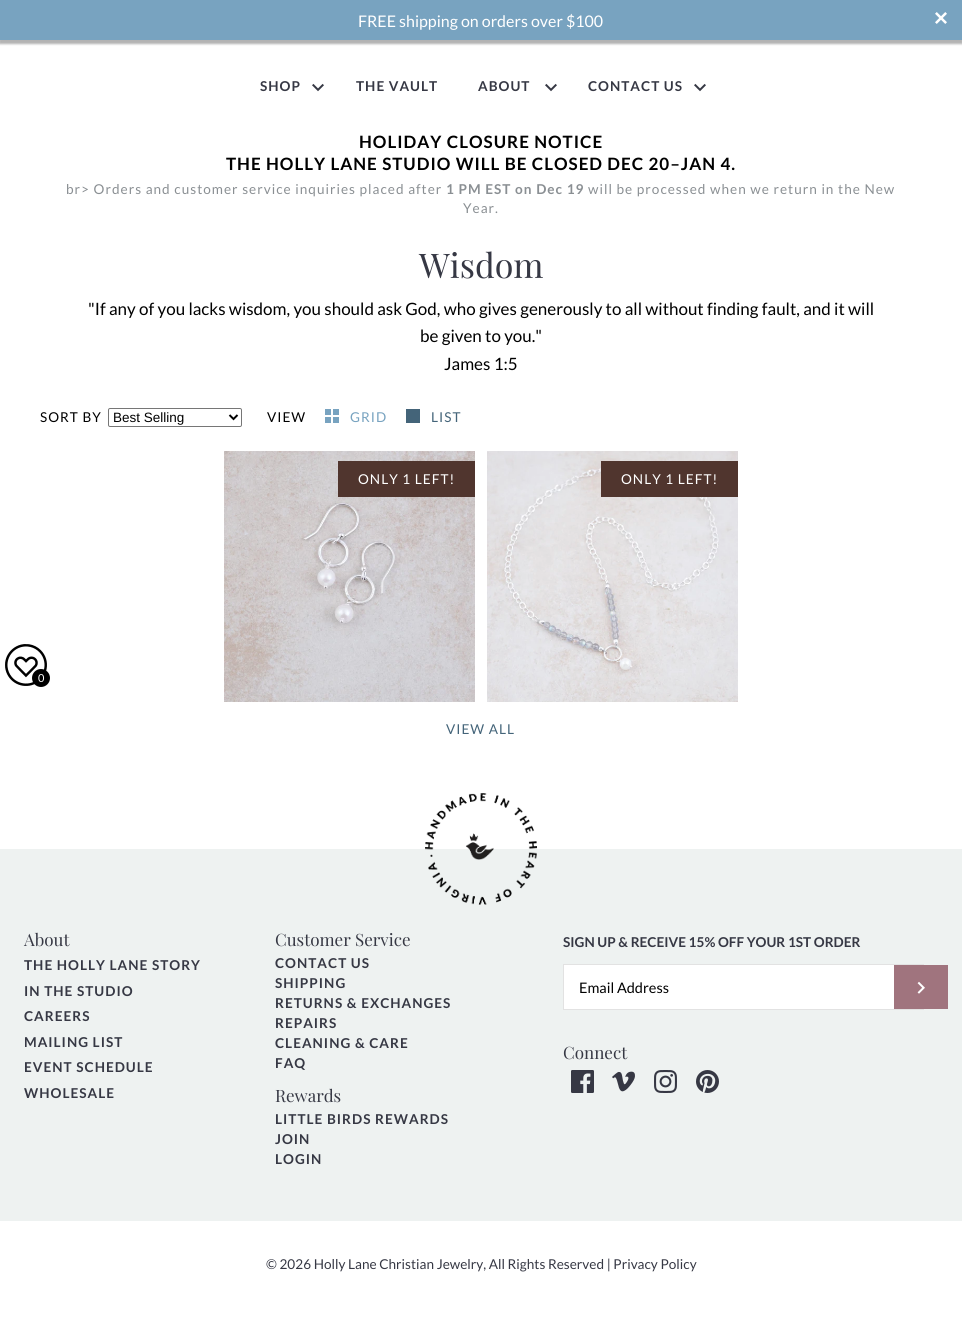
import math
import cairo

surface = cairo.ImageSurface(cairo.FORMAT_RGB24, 962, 1329)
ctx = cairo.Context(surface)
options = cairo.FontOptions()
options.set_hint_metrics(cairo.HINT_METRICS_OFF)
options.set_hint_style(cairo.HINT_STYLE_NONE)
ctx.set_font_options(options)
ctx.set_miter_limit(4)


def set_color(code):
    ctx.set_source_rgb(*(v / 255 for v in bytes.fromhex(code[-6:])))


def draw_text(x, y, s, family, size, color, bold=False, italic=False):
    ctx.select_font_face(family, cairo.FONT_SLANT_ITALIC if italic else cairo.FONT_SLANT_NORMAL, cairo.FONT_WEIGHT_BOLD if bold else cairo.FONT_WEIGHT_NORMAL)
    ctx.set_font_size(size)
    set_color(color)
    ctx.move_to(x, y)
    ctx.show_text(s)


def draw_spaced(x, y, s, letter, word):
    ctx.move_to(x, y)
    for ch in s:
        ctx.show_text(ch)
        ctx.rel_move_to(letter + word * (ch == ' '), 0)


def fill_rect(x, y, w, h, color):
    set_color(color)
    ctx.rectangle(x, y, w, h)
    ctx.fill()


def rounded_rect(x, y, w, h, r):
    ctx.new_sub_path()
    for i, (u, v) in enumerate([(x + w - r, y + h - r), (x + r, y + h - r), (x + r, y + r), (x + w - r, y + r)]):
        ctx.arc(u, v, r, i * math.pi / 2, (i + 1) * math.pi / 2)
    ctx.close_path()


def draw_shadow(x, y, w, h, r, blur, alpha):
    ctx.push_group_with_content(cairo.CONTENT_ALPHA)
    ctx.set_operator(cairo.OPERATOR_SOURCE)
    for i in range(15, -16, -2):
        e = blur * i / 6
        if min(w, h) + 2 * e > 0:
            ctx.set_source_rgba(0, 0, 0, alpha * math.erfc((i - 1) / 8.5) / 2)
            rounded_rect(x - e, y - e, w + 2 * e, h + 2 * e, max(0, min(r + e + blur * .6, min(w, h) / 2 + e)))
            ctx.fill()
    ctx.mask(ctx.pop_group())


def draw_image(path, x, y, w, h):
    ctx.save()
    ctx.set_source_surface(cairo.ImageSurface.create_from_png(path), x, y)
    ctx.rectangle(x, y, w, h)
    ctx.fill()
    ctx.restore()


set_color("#ffffff")
ctx.paint()
set_color("#000000")
draw_shadow(-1, 2, 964, 42, 0, 1, 0.3)
fill_rect(0, 0, 962, 40, "#78a3c0")
draw_text(358, 27, "FREE shipping on orders over $100", "Lato", 16, "#ffffff")
draw_image("assets/img1.png", 935, 12, 12, 12)
ctx.select_font_face("Lato", cairo.FONT_SLANT_NORMAL, cairo.FONT_WEIGHT_BOLD)
ctx.set_font_size(13.6)
set_color("#363844")
draw_spaced(260, 91, "SHOP", 1, 0)
draw_image("assets/img2.png", 312, 83, 12, 9)
draw_spaced(356, 91, "THE VAULT", 1, 0)
draw_spaced(478, 91, "ABOUT", 1, 0)
draw_image("assets/img2.png", 545, 83, 12, 9)
draw_spaced(588, 91, "CONTACT US", 1, 0)
draw_image("assets/img2.png", 694, 83, 12, 9)
ctx.set_font_size(17)
set_color("#000000")
draw_spaced(359, 148, "HOLIDAY CLOSURE NOTICE", 1, 0)
draw_spaced(226, 170, "THE HOLLY LANE STUDIO WILL BE CLOSED DEC 20–JAN 4.", 1, 0)
ctx.select_font_face("Lato")
ctx.set_font_size(13.6)
set_color("#8a8f93")
draw_spaced(66, 194, "br> Orders and customer service inquiries placed after", 1, 0)
ctx.select_font_face("Lato", cairo.FONT_SLANT_NORMAL, cairo.FONT_WEIGHT_BOLD)
draw_spaced(446, 194, "1 PM EST on Dec 19", 1, 0)
ctx.select_font_face("Lato")
draw_spaced(588, 194, "will be processed when we return in the New", 1, 0)
draw_spaced(463, 213, "Year.", 1, 0)
draw_text(419, 278, "Wisdom", "Playfair Display", 34, "#363844")
draw_text(88, 315, "\"If any of you lacks wisdom, you should ask God, who gives generously to all without finding fault, and it will", "Lato", 17, "#000000")
draw_text(420, 342, "be given to you.\"", "Lato", 17, "#000000")
draw_text(444, 370, "James 1:5", "Lato", 17, "#000000")
ctx.set_font_size(13.6)
draw_spaced(40, 422, "SORT BY", 1, 0)
rounded_rect(108.5, 408.5, 133, 18, 1.5)
set_color("#767676")
ctx.set_line_width(1)
ctx.stroke()
ctx.new_path()
ctx.move_to(229.5, 415)
ctx.line_to(233.5, 419)
ctx.line_to(237.5, 415)
set_color("#000000")
ctx.set_line_width(2)
ctx.stroke()
draw_text(113, 422, "Best Selling", "Liberation Sans", 13.5, "#000000")
ctx.select_font_face("Lato")
ctx.set_font_size(13.6)
draw_spaced(267, 422, "VIEW", 1, 0)
fill_rect(325, 409, 6, 6, "#78a3c0")
fill_rect(333, 409, 6, 6, "#78a3c0")
draw_spaced(350, 422, "GRID", 1, 0)
fill_rect(325, 417, 6, 6, "#78a3c0")
fill_rect(333, 417, 6, 6, "#78a3c0")
fill_rect(406, 409, 14, 14, "#446479")
draw_spaced(431, 422, "LIST", 1, 0)
draw_image("assets/img3.png", 224, 451, 251, 251)
fill_rect(338, 461, 137, 36, "#50352e")
set_color("#ffffff")
draw_spaced(358, 484, "ONLY 1 LEFT!", 1, 0)
draw_image("assets/img4.png", 487, 451, 251, 251)
fill_rect(601, 461, 137, 36, "#50352e")
set_color("#ffffff")
draw_spaced(621, 484, "ONLY 1 LEFT!", 1, 0)
set_color("#446479")
draw_spaced(446, 734, "VIEW ALL", 1, 0)
draw_image("assets/img5.png", 5, 644, 42, 42)
set_color("#000000")
ctx.arc(41, 678, 9, 0, 2 * math.pi)
ctx.fill()
draw_text(38, 682, "0", "Lato", 11, "#ffffff")
fill_rect(0, 849, 962, 372, "#eef2f1")
draw_image("assets/img6.png", 425, 793, 112, 112)
draw_text(24, 946, "About", "Playfair Display", 17, "#363844")
ctx.select_font_face("Lato", cairo.FONT_SLANT_NORMAL, cairo.FONT_WEIGHT_BOLD)
ctx.set_font_size(13.6)
draw_spaced(24, 970, "THE HOLLY LANE STORY", 1, 0)
draw_spaced(24, 996, "IN THE STUDIO", 1, 0)
draw_spaced(24, 1021, "CAREERS", 1, 0)
draw_spaced(24, 1047, "MAILING LIST", 1, 0)
draw_spaced(24, 1072, "EVENT SCHEDULE", 1, 0)
draw_spaced(24, 1098, "WHOLESALE", 1, 0)
draw_text(275, 946, "Customer Service", "Playfair Display", 17, "#363844")
ctx.select_font_face("Lato", cairo.FONT_SLANT_NORMAL, cairo.FONT_WEIGHT_BOLD)
ctx.set_font_size(13.6)
draw_spaced(275, 968, "CONTACT US", 1, 0)
draw_spaced(275, 988, "SHIPPING", 1, 0)
draw_spaced(275, 1008, "RETURNS & EXCHANGES", 1, 0)
draw_spaced(275, 1028, "REPAIRS", 1, 0)
draw_spaced(275, 1048, "CLEANING & CARE", 1, 0)
draw_spaced(275, 1068, "FAQ", 1, 0)
draw_text(275, 1102, "Rewards", "Playfair Display", 17, "#363844")
ctx.select_font_face("Lato", cairo.FONT_SLANT_NORMAL, cairo.FONT_WEIGHT_BOLD)
ctx.set_font_size(13.6)
draw_spaced(275, 1124, "LITTLE BIRDS REWARDS", 1, 0)
draw_spaced(275, 1144, "JOIN", 1, 0)
draw_spaced(275, 1164, "LOGIN", 1, 0)
draw_text(563, 947, "SIGN UP & RECEIVE 15% OFF YOUR 1ST ORDER", "Lato", 13.6, "#363844", bold=True)
fill_rect(564, 965, 330, 44, "#ffffff")
ctx.rectangle(563.5, 964.5, 360, 45)
set_color("#e2e2e2")
ctx.set_line_width(1)
ctx.stroke()
draw_text(579, 993, "Email Address", "Lato", 14.5, "#000000")
fill_rect(894, 965, 54, 44, "#a0747e")
draw_image("assets/img7.png", 917, 981, 8, 13)
draw_text(563, 1059, "Connect", "Playfair Display", 17, "#363844")
draw_image("assets/img8.png", 571, 1070, 23, 23)
draw_image("assets/img9.png", 612, 1071, 23, 21)
draw_image("assets/img10.png", 654, 1070, 23, 23)
draw_image("assets/img11.png", 696, 1070, 23, 23)
draw_text(266, 1269, "© 2026 Holly Lane Christian Jewelry, All Rights Reserved | Privacy Policy", "Lato", 13.6, "#363844")
surface.write_to_png("output.png")
